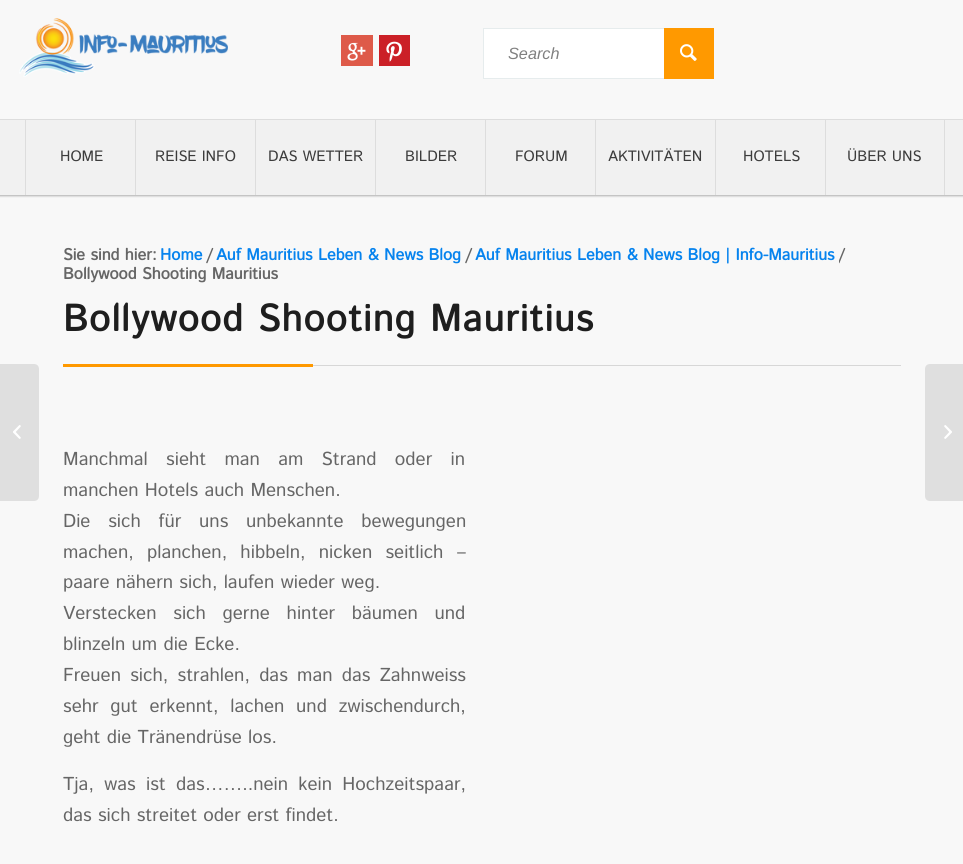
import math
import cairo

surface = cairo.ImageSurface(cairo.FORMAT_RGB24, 963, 864)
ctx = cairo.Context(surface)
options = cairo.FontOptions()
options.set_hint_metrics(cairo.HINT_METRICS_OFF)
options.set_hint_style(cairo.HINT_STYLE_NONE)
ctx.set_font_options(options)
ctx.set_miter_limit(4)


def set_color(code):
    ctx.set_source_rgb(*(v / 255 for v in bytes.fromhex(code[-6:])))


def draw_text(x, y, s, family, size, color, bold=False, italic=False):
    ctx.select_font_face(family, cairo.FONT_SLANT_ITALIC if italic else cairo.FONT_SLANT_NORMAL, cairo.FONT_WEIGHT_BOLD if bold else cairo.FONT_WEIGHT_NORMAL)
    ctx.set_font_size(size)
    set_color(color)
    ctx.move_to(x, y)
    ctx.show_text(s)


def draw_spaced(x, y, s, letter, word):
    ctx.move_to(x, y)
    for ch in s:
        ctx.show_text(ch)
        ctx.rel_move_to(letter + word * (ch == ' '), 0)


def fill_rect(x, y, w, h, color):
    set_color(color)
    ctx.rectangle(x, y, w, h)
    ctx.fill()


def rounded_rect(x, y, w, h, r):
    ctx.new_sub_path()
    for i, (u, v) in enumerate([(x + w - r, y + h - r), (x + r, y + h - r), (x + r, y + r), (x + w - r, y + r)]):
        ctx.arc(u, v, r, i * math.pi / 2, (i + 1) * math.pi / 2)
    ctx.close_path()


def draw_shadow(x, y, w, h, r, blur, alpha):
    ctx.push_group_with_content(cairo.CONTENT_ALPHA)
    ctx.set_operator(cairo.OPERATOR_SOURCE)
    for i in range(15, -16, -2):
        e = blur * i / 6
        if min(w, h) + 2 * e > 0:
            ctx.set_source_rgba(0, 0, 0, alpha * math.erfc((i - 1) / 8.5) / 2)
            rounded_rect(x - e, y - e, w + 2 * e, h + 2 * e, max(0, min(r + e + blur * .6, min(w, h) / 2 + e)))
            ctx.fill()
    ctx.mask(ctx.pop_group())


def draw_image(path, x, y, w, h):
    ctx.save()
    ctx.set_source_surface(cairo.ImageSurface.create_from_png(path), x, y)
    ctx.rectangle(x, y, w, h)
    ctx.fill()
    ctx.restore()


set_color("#f8f8f8")
ctx.paint()
set_color("#000000")
draw_shadow(-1, -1, 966, 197, 0, 1, 0.3)
fill_rect(0, 0, 963, 119, "#f8f8f8")
draw_image("assets/img1.png", 19, 18, 209, 59)
fill_rect(341, 35, 32, 31, "#de5a49")
draw_image("assets/img2.png", 347, 42, 19, 19)
fill_rect(379, 35, 31, 31, "#cb2027")
draw_image("assets/img3.png", 386, 41, 16, 21)
fill_rect(484, 29, 180, 49, "#ffffff")
ctx.rectangle(483.5, 28.5, 230, 50)
set_color("#e6eced")
ctx.set_line_width(1)
ctx.stroke()
draw_text(508, 59, "Search", "Liberation Sans", 16.25, "#808080", italic=True)
fill_rect(664, 28, 50, 51, "#ff9900")
draw_image("assets/img4.png", 680, 44, 17, 17)
fill_rect(0, 120, 963, 75, "#f1f1f1")
fill_rect(0, 119, 963, 1, "#dddddd")
fill_rect(25, 120, 1, 75, "#dddddd")
draw_text(60, 161, "HOME", "Istok Web", 15, "#3c3c3c")
fill_rect(135, 120, 1, 75, "#dddddd")
draw_text(155, 161, "REISE INFO", "Istok Web", 15, "#3c3c3c")
fill_rect(255, 120, 1, 75, "#dddddd")
draw_text(268, 161, "DAS WETTER", "Istok Web", 15, "#3c3c3c")
fill_rect(375, 120, 1, 75, "#dddddd")
draw_text(405, 161, "BILDER", "Istok Web", 15, "#3c3c3c")
fill_rect(485, 120, 1, 75, "#dddddd")
draw_text(515, 161, "FORUM", "Istok Web", 15, "#3c3c3c")
fill_rect(595, 120, 1, 75, "#dddddd")
draw_text(608, 161, "AKTIVITÄTEN", "Istok Web", 15, "#3c3c3c")
fill_rect(715, 120, 1, 75, "#dddddd")
draw_text(743, 161, "HOTELS", "Istok Web", 15, "#3c3c3c")
fill_rect(944, 120, 1, 75, "#dddddd")
fill_rect(825, 120, 1, 75, "#dddddd")
draw_text(847, 161, "ÜBER UNS", "Istok Web", 15, "#3c3c3c")
set_color("#dfdfdf")
ctx.new_path()
ctx.move_to(0, 364)
ctx.line_to(34, 364)
ctx.curve_to(37, 364, 39, 366, 39, 369)
ctx.line_to(39, 496)
ctx.curve_to(39, 499, 37, 501, 34, 501)
ctx.line_to(0, 501)
ctx.close_path()
ctx.fill()
draw_image("assets/img5.png", 13, 425, 8, 14)
draw_text(63, 260, "Sie sind hier:", "Istok Web", 16.25, "#666666", bold=True)
draw_text(160, 260, "Home", "Istok Web", 16.25, "#0683ee", bold=True)
draw_text(206, 260, "/", "Istok Web", 16.25, "#666666", bold=True)
draw_text(216, 260, "Auf Mauritius Leben & News Blog", "Istok Web", 16.25, "#0683ee", bold=True)
draw_text(465, 260, "/", "Istok Web", 16.25, "#666666", bold=True)
draw_text(475, 260, "Auf Mauritius Leben & News Blog | Info-Mauritius", "Istok Web", 16.25, "#0683ee", bold=True)
ctx.save()
ctx.rectangle(839, 246, 10, 19)
ctx.clip()
draw_text(838, 260, "/", "Istok Web", 16.25, "#666666", bold=True)
ctx.restore()
draw_text(63, 279, "Bollywood Shooting Mauritius", "Istok Web", 16.25, "#666666", bold=True)
fill_rect(313, 365, 588, 1, "#d7d7d7")
ctx.set_font_size(37.5)
set_color("#1e1e1e")
draw_spaced(63, 331, "Bollywood Shooting Mauritius", 1.25, 0)
fill_rect(63, 364, 250, 3, "#ff9900")
ctx.select_font_face("Istok Web")
ctx.set_font_size(18.75)
set_color("#666666")
draw_spaced(63, 465, "Manchmal sieht man am Strand oder in", 0, 12)
draw_text(63, 496, "manchen Hotels auch Menschen.", "Istok Web", 18.75, "#666666")
draw_spaced(63, 527, "Die sich für uns unbekannte bewegungen", 0, 11.5)
draw_spaced(63, 558, "machen, planchen, hibbeln, nicken seitlich –", 0, 7)
draw_text(63, 588, "paare nähern sich, laufen wieder weg.", "Istok Web", 18.75, "#666666")
draw_spaced(63, 619, "Verstecken sich gerne hinter bäumen und", 0, 10.5)
draw_text(63, 650, "blinzeln um die Ecke.", "Istok Web", 18.75, "#666666")
draw_spaced(63, 681, "Freuen sich, strahlen, das man das Zahnweiss", 0, 3)
draw_spaced(63, 712, "sehr gut erkennt, lachen und zwischendurch,", 0, 5.5)
draw_text(63, 743, "geht die Tränendrüse los.", "Istok Web", 18.75, "#666666")
draw_spaced(63, 790, "Tja, was ist das……..nein kein Hochzeitspaar,", 0, 4)
draw_text(63, 821, "das sich streitet oder erst findet.", "Istok Web", 18.75, "#666666")
set_color("#dfdfdf")
ctx.new_path()
ctx.move_to(930, 364)
ctx.line_to(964, 364)
ctx.line_to(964, 501)
ctx.line_to(930, 501)
ctx.curve_to(927, 501, 925, 499, 925, 496)
ctx.line_to(925, 369)
ctx.curve_to(925, 366, 927, 364, 930, 364)
ctx.close_path()
ctx.fill()
draw_image("assets/img6.png", 944, 425, 8, 14)
surface.write_to_png("output.png")
